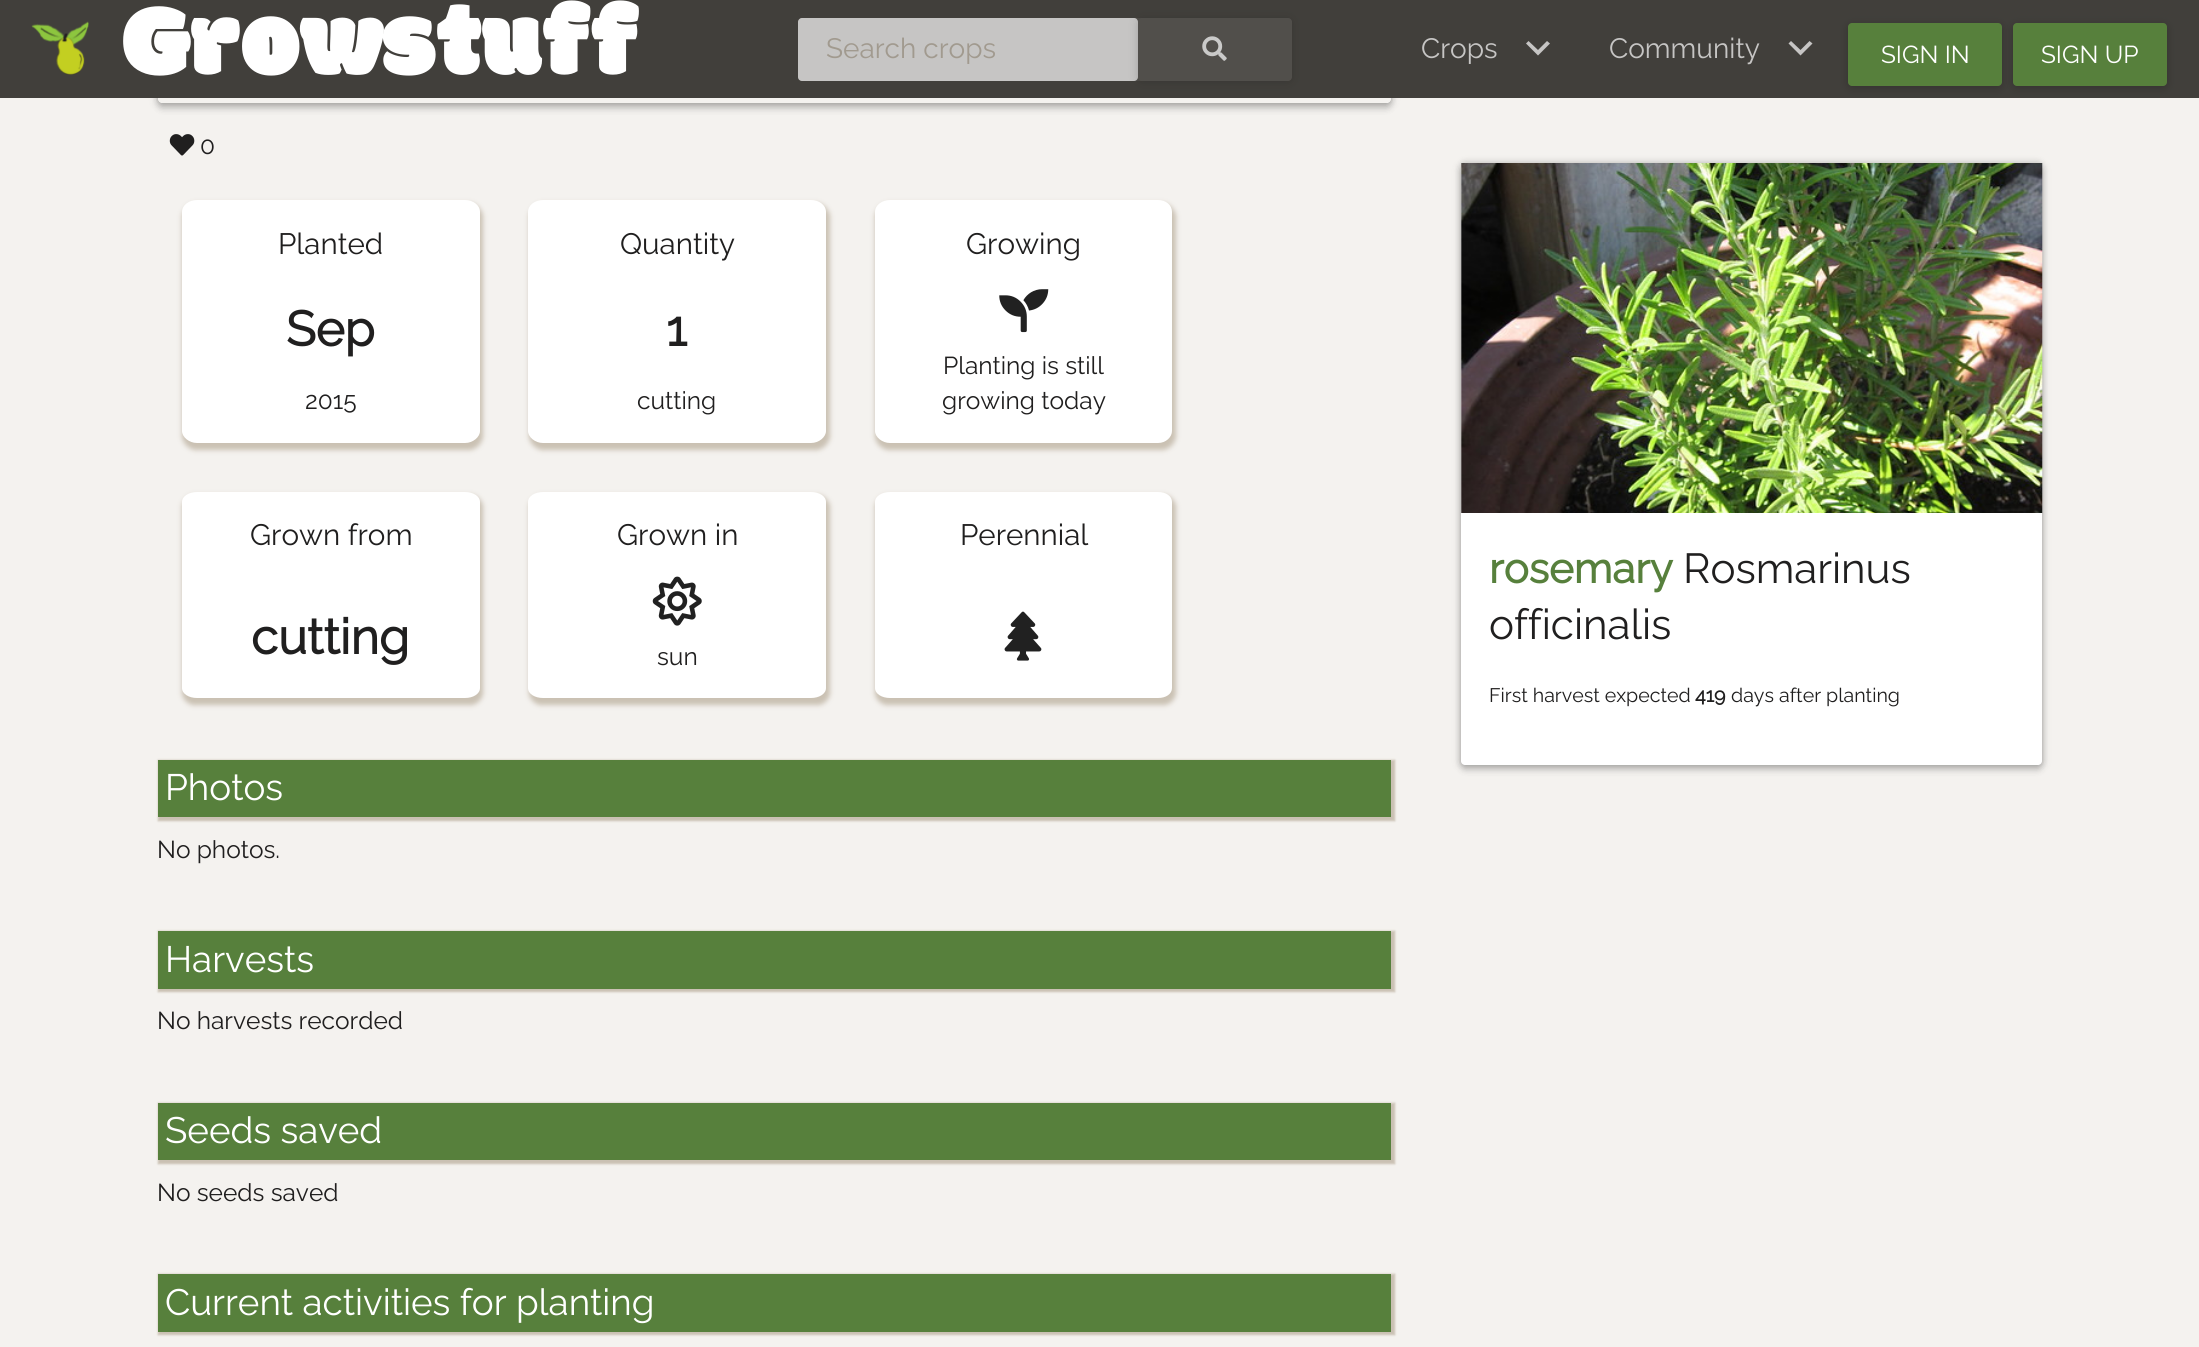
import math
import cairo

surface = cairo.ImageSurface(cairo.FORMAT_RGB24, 2199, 1347)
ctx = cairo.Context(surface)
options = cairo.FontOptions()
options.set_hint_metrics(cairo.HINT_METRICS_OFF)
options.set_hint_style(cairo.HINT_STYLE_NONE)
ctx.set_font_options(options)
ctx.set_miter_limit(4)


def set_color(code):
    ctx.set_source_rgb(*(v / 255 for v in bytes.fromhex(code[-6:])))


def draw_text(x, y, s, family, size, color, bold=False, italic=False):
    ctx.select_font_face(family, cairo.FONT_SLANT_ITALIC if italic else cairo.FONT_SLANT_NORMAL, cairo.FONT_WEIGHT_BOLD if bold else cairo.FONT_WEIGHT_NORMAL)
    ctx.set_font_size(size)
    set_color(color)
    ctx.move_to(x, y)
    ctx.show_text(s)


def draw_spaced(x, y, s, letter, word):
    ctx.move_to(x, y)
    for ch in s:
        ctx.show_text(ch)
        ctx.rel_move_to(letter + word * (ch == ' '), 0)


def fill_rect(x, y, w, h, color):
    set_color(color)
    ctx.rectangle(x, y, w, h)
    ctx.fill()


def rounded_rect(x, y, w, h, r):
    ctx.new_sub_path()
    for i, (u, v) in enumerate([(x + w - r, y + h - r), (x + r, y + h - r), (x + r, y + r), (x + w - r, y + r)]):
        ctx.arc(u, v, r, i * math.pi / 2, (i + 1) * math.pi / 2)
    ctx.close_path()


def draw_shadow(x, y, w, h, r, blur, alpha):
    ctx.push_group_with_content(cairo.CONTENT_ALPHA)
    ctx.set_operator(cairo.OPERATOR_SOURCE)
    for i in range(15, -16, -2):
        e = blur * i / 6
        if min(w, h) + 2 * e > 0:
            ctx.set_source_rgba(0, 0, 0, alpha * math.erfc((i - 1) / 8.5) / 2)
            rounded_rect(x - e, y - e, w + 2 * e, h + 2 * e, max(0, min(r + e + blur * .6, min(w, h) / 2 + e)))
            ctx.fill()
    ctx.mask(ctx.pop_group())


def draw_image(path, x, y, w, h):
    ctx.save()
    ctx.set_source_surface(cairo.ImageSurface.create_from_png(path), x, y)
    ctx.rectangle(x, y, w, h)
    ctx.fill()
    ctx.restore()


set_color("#f4f2ef")
ctx.paint()
ctx.save()
ctx.set_fill_rule(cairo.FILL_RULE_EVEN_ODD)
ctx.new_path()
ctx.move_to(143, 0)
ctx.line_to(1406, 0)
ctx.line_to(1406, 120)
ctx.line_to(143, 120)
ctx.close_path()
ctx.move_to(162, -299)
ctx.line_to(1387, -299)
ctx.curve_to(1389, -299, 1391, -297, 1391, -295)
ctx.line_to(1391, 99)
ctx.curve_to(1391, 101, 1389, 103, 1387, 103)
ctx.line_to(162, 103)
ctx.curve_to(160, 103, 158, 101, 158, 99)
ctx.line_to(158, -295)
ctx.curve_to(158, -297, 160, -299, 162, -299)
ctx.close_path()
ctx.clip()
set_color("#000000")
draw_shadow(158, -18, 1233, 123, 4, 4.5, 0.2)
ctx.restore()
ctx.save()
ctx.set_fill_rule(cairo.FILL_RULE_EVEN_ODD)
ctx.new_path()
ctx.move_to(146, 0)
ctx.line_to(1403, 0)
ctx.line_to(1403, 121)
ctx.line_to(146, 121)
ctx.close_path()
ctx.move_to(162, -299)
ctx.line_to(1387, -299)
ctx.curve_to(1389, -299, 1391, -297, 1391, -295)
ctx.line_to(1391, 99)
ctx.curve_to(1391, 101, 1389, 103, 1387, 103)
ctx.line_to(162, 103)
ctx.curve_to(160, 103, 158, 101, 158, 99)
ctx.line_to(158, -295)
ctx.curve_to(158, -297, 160, -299, 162, -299)
ctx.close_path()
ctx.clip()
set_color("#000000")
draw_shadow(158, -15, 1233, 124, 4, 3.5, 0.12)
ctx.restore()
ctx.save()
ctx.set_fill_rule(cairo.FILL_RULE_EVEN_ODD)
ctx.new_path()
ctx.move_to(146, 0)
ctx.line_to(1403, 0)
ctx.line_to(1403, 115)
ctx.line_to(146, 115)
ctx.close_path()
ctx.move_to(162, -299)
ctx.line_to(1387, -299)
ctx.curve_to(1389, -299, 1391, -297, 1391, -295)
ctx.line_to(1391, 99)
ctx.curve_to(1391, 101, 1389, 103, 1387, 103)
ctx.line_to(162, 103)
ctx.curve_to(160, 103, 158, 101, 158, 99)
ctx.line_to(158, -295)
ctx.curve_to(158, -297, 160, -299, 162, -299)
ctx.close_path()
ctx.clip()
set_color("#000000")
draw_shadow(158, -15, 1233, 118, 4, 3.5, 0.14)
ctx.restore()
fill_rect(0, 0, 2199, 98, "#413f3b")
draw_image("assets/img1.png", 31, 21, 58, 54)
ctx.select_font_face("Modak")
ctx.set_font_size(105)
set_color("#ffffff")
draw_spaced(122, 74, "Growstuff", 0.75, 0)
set_color("#514f4b")
rounded_rect(798, 18, 494, 63, 4)
ctx.fill()
set_color("#c6c5c4")
rounded_rect(798, 18, 340, 63, 4)
ctx.fill()
draw_text(826, 58, "Search crops", "Raleway Thin", 28, "#a19a8f")
ctx.save()
ctx.set_fill_rule(cairo.FILL_RULE_EVEN_ODD)
ctx.new_path()
ctx.move_to(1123, 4)
ctx.line_to(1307, 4)
ctx.line_to(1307, 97)
ctx.line_to(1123, 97)
ctx.close_path()
ctx.move_to(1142, 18)
ctx.line_to(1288, 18)
ctx.curve_to(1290, 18, 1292, 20, 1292, 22)
ctx.line_to(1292, 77)
ctx.curve_to(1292, 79, 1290, 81, 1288, 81)
ctx.line_to(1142, 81)
ctx.curve_to(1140, 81, 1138, 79, 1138, 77)
ctx.line_to(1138, 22)
ctx.curve_to(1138, 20, 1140, 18, 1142, 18)
ctx.close_path()
ctx.clip()
set_color("#141312")
draw_shadow(1138, 19, 154, 63, 4, 4.5, 0.2)
ctx.restore()
draw_image("assets/img2.png", 1202, 36, 25, 25)
draw_text(1421, 58, "Crops", "Raleway Thin", 28, "#c6c5c4")
ctx.new_path()
ctx.move_to(1547, 41)
ctx.line_to(1550, 43.5)
ctx.line_to(1538, 55.5)
ctx.line_to(1526, 43.5)
ctx.line_to(1528.5, 41)
ctx.line_to(1538, 50)
ctx.close_path()
ctx.fill()
draw_text(1609, 58, "Community", "Raleway Thin", 28, "#c6c5c4")
ctx.new_path()
ctx.move_to(1809.5, 41)
ctx.line_to(1812.5, 43.5)
ctx.line_to(1800.5, 55.5)
ctx.line_to(1788.5, 43.5)
ctx.line_to(1791, 41)
ctx.line_to(1800.5, 50)
ctx.close_path()
ctx.fill()
set_color("#000000")
draw_shadow(1848, 25, 154, 63, 4, 4.5, 0.2)
set_color("#57803c")
rounded_rect(1848, 23, 154, 63, 4)
ctx.fill()
draw_text(1881, 63, "SIGN IN", "Raleway Thin", 24.5, "#ffffff")
set_color("#000000")
draw_shadow(2013, 25, 154, 63, 4, 4.5, 0.2)
set_color("#57803c")
rounded_rect(2013, 23, 154, 63, 4)
ctx.fill()
draw_text(2041, 63, "SIGN UP", "Raleway Thin", 24.5, "#ffffff")
draw_image("assets/img3.png", 169, 134, 26, 22)
draw_text(200, 154, "0", "Raleway Thin", 24.5, "#201f1f")
set_color("#cac1b3")
draw_shadow(182, 203, 301, 247, 14, 2.5, 1)
set_color("#ffffff")
ctx.new_path()
ctx.move_to(197, 200)
ctx.line_to(465, 200)
ctx.curve_to(473, 200, 480, 205, 480, 212)
ctx.line_to(480, 431)
ctx.curve_to(480, 437, 473, 443, 465, 443)
ctx.line_to(197, 443)
ctx.curve_to(189, 443, 182, 437, 182, 431)
ctx.line_to(182, 212)
ctx.curve_to(182, 205, 189, 200, 197, 200)
ctx.close_path()
ctx.fill()
draw_text(278, 254, "Planted", "Raleway Thin", 29.5, "#201f1f")
draw_text(286, 346, "Sep", "Raleway", 49, "#201f1f", bold=True)
draw_text(305, 409, "2015", "Raleway Thin", 24.5, "#201f1f")
set_color("#cac1b3")
draw_shadow(529, 203, 301, 247, 14, 2.5, 1)
set_color("#ffffff")
ctx.new_path()
ctx.move_to(543, 200)
ctx.line_to(811, 200)
ctx.curve_to(819, 200, 826, 205, 826, 212)
ctx.line_to(826, 431)
ctx.curve_to(826, 437, 819, 443, 811, 443)
ctx.line_to(543, 443)
ctx.curve_to(535, 443, 528, 437, 528, 431)
ctx.line_to(528, 212)
ctx.curve_to(528, 205, 535, 200, 543, 200)
ctx.close_path()
ctx.fill()
draw_text(620, 254, "Quantity", "Raleway Thin", 29.5, "#201f1f")
draw_text(666, 346, "1", "Raleway", 49, "#201f1f", bold=True)
draw_text(637, 409, "cutting", "Raleway Thin", 24.5, "#201f1f")
set_color("#cac1b3")
draw_shadow(875, 203, 301, 247, 14, 2.5, 1)
set_color("#ffffff")
ctx.new_path()
ctx.move_to(890, 200)
ctx.line_to(1158, 200)
ctx.curve_to(1166, 200, 1172, 205, 1172, 212)
ctx.line_to(1172, 431)
ctx.curve_to(1172, 437, 1166, 443, 1158, 443)
ctx.line_to(890, 443)
ctx.curve_to(882, 443, 875, 437, 875, 431)
ctx.line_to(875, 212)
ctx.curve_to(875, 205, 882, 200, 890, 200)
ctx.close_path()
ctx.fill()
draw_text(966, 254, "Growing", "Raleway Thin", 29.5, "#201f1f")
draw_image("assets/img4.png", 999, 289, 50, 44)
draw_text(943, 374, "Planting is still", "Raleway Thin", 24.5, "#201f1f")
draw_text(942, 409, "growing today", "Raleway Thin", 24.5, "#201f1f")
set_color("#cac1b3")
draw_shadow(182, 495, 301, 210, 12, 2.5, 1)
set_color("#ffffff")
ctx.new_path()
ctx.move_to(197, 492)
ctx.line_to(465, 492)
ctx.curve_to(473, 492, 480, 496, 480, 502)
ctx.line_to(480, 688)
ctx.curve_to(480, 694, 473, 698, 465, 698)
ctx.line_to(197, 698)
ctx.curve_to(189, 698, 182, 694, 182, 688)
ctx.line_to(182, 502)
ctx.curve_to(182, 496, 189, 492, 197, 492)
ctx.close_path()
ctx.fill()
draw_text(250, 545, "Grown from", "Raleway Thin", 29.5, "#201f1f")
draw_text(251, 654, "cutting", "Raleway", 49, "#201f1f", bold=True)
set_color("#cac1b3")
draw_shadow(529, 495, 301, 210, 12, 2.5, 1)
set_color("#ffffff")
ctx.new_path()
ctx.move_to(543, 492)
ctx.line_to(811, 492)
ctx.curve_to(819, 492, 826, 496, 826, 502)
ctx.line_to(826, 688)
ctx.curve_to(826, 694, 819, 698, 811, 698)
ctx.line_to(543, 698)
ctx.curve_to(535, 698, 528, 694, 528, 688)
ctx.line_to(528, 502)
ctx.curve_to(528, 496, 535, 492, 543, 492)
ctx.close_path()
ctx.fill()
draw_text(617, 545, "Grown in", "Raleway Thin", 29.5, "#201f1f")
draw_image("assets/img5.png", 652, 576, 50, 50)
draw_text(657, 665, "sun", "Raleway Thin", 24.5, "#201f1f")
set_color("#cac1b3")
draw_shadow(875, 495, 301, 210, 12, 2.5, 1)
set_color("#ffffff")
ctx.new_path()
ctx.move_to(890, 492)
ctx.line_to(1158, 492)
ctx.curve_to(1166, 492, 1172, 496, 1172, 502)
ctx.line_to(1172, 688)
ctx.curve_to(1172, 694, 1166, 698, 1158, 698)
ctx.line_to(890, 698)
ctx.curve_to(882, 698, 875, 694, 875, 688)
ctx.line_to(875, 502)
ctx.curve_to(875, 496, 882, 492, 890, 492)
ctx.close_path()
ctx.fill()
draw_text(960, 545, "Perennial", "Raleway Thin", 29.5, "#201f1f")
draw_image("assets/img6.png", 1004, 611, 38, 50)
set_color("#cac1b3")
draw_shadow(158, 760, 1237, 61, 0, 1, 1)
fill_rect(158, 760, 1233, 57, "#57803c")
draw_text(165, 800, "Photos", "Raleway Thin", 36.75, "#ffffff")
draw_text(157, 858, "No photos.", "Raleway Thin", 24.5, "#201f1f")
set_color("#cac1b3")
draw_shadow(158, 931, 1237, 61, 0, 1, 1)
fill_rect(158, 931, 1233, 58, "#57803c")
draw_text(165, 972, "Harvests", "Raleway Thin", 36.75, "#ffffff")
draw_text(157, 1029, "No harvests recorded", "Raleway Thin", 24.5, "#201f1f")
set_color("#cac1b3")
draw_shadow(158, 1103, 1237, 61, 0, 1, 1)
fill_rect(158, 1103, 1233, 57, "#57803c")
draw_text(165, 1143, "Seeds saved", "Raleway Thin", 36.75, "#ffffff")
draw_text(157, 1201, "No seeds saved", "Raleway Thin", 24.5, "#201f1f")
set_color("#cac1b3")
draw_shadow(158, 1274, 1237, 61, 0, 1, 1)
fill_rect(158, 1274, 1233, 58, "#57803c")
draw_text(165, 1315, "Current activities for planting", "Raleway Thin", 36.75, "#ffffff")
set_color("#000000")
draw_shadow(1461, 165, 581, 602, 4, 4.5, 0.2)
draw_shadow(1461, 168, 581, 602, 4, 3.5, 0.12)
draw_shadow(1461, 163, 581, 602, 4, 3.5, 0.14)
set_color("#ffffff")
rounded_rect(1461, 163, 581, 602, 4)
ctx.fill()
draw_image("assets/img7.png", 1461, 163, 582, 350)
draw_text(1489, 583, "rosemary", "Raleway", 42, "#57803c", bold=True)
draw_text(1683, 583, "Rosmarinus", "Raleway Thin", 42, "#201f1f")
draw_text(1489, 639, "officinalis", "Raleway Thin", 42, "#201f1f")
draw_text(1489, 702, "First harvest expected", "Raleway Thin", 19.6, "#201f1f")
draw_text(1695, 702, "419", "Raleway", 19.6, "#201f1f", bold=True)
draw_text(1731, 702, "days after planting", "Raleway Thin", 19.6, "#201f1f")
surface.write_to_png("output.png")
